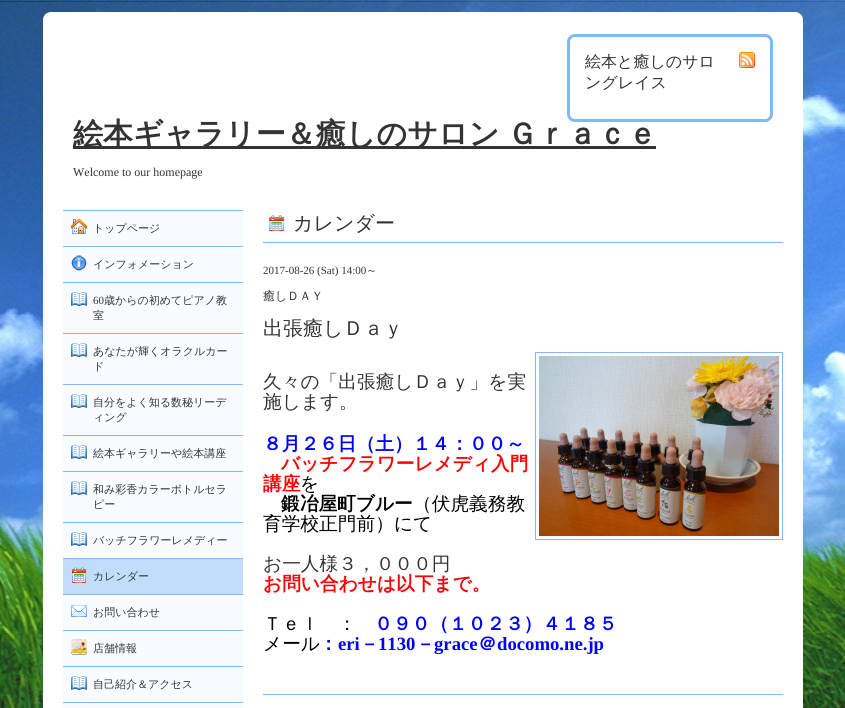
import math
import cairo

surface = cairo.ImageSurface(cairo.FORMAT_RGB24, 845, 708)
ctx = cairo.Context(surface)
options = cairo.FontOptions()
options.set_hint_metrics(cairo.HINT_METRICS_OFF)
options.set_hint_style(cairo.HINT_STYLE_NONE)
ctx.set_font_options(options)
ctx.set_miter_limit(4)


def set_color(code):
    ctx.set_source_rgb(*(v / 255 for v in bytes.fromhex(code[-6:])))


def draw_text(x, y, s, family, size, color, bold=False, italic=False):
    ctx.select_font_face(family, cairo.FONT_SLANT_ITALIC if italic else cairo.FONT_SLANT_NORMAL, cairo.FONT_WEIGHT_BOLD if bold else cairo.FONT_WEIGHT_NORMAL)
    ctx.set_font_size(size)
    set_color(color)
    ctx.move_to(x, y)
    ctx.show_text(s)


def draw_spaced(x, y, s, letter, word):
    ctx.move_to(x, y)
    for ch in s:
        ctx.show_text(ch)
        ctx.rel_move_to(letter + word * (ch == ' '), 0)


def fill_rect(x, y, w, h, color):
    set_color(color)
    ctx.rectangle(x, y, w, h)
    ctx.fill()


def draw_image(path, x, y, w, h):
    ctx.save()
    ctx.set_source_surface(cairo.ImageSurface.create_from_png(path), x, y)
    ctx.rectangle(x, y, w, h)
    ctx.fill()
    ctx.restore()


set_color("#ffffff")
ctx.paint()
draw_image("assets/img1.png", 0, 0, 845, 708)
fill_rect(43, 20, 760, 688, "#ffffff")
fill_rect(47, 12, 1, 1, "#4e749e")
fill_rect(48, 12, 1, 1, "#a4b8cd")
fill_rect(49, 12, 1, 1, "#dde4ed")
fill_rect(50, 12, 1, 1, "#f9fafb")
fill_rect(44, 14, 1, 1, "#305c8e")
fill_rect(45, 13, 1, 1, "#305c8e")
fill_rect(46, 13, 1, 1, "#a7bacf")
fill_rect(47, 13, 1, 1, "#fefeff")
fill_rect(48, 13, 3, 7, "#ffffff")
fill_rect(44, 15, 1, 1, "#a7bacf")
fill_rect(45, 14, 1, 1, "#c9d5e2")
fill_rect(46, 14, 2, 6, "#ffffff")
fill_rect(43, 16, 1, 1, "#4e749f")
fill_rect(44, 16, 1, 1, "#fefeff")
fill_rect(45, 15, 1, 5, "#ffffff")
fill_rect(43, 17, 1, 1, "#a4b8ce")
fill_rect(44, 17, 1, 3, "#ffffff")
fill_rect(43, 18, 1, 1, "#dde4ed")
fill_rect(43, 19, 1, 1, "#f9fafb")
fill_rect(51, 12, 744, 8, "#ffffff")
fill_rect(795, 12, 1, 1, "#f9fbfd")
fill_rect(796, 12, 1, 1, "#e0e9f4")
fill_rect(797, 12, 1, 1, "#adc3e2")
fill_rect(798, 12, 1, 1, "#5e8bc6")
fill_rect(795, 13, 3, 7, "#ffffff")
fill_rect(798, 13, 1, 1, "#fefeff")
fill_rect(799, 13, 1, 1, "#afc6e3")
fill_rect(800, 13, 1, 1, "#4478bc")
fill_rect(798, 14, 2, 6, "#ffffff")
fill_rect(800, 14, 1, 1, "#cfdcee")
fill_rect(801, 14, 1, 1, "#4377ba")
fill_rect(800, 15, 1, 5, "#ffffff")
fill_rect(801, 15, 1, 1, "#afc5e2")
fill_rect(801, 16, 1, 1, "#fefeff")
fill_rect(802, 16, 1, 1, "#5e8dc4")
fill_rect(801, 17, 1, 3, "#ffffff")
fill_rect(802, 17, 1, 1, "#adc5e1")
fill_rect(802, 18, 1, 1, "#e0e9f4")
fill_rect(802, 19, 1, 1, "#f9fbfd")
fill_rect(770, 42, 3, 72, "#83b9f0")
fill_rect(567, 42, 3, 72, "#83b9f0")
fill_rect(571, 34, 1, 1, "#e9f2fc")
fill_rect(572, 34, 1, 1, "#b7d6f6")
fill_rect(573, 34, 1, 1, "#96c4f2")
fill_rect(574, 34, 1, 1, "#87bbf0")
fill_rect(568, 36, 1, 1, "#fbfdfe")
fill_rect(569, 35, 1, 1, "#fbfdfe")
fill_rect(570, 35, 1, 1, "#b6d6f6")
fill_rect(571, 35, 1, 3, "#83b9f0")
fill_rect(572, 35, 3, 2, "#83b9f0")
fill_rect(568, 37, 1, 1, "#b6d6f6")
fill_rect(569, 36, 1, 1, "#a2cbf4")
fill_rect(570, 36, 1, 3, "#83b9f0")
fill_rect(569, 37, 1, 5, "#83b9f0")
fill_rect(572, 37, 1, 1, "#a7cdf4")
fill_rect(573, 37, 1, 1, "#dfedfb")
fill_rect(574, 37, 1, 1, "#f9fbfe")
fill_rect(567, 38, 1, 1, "#e9f2fc")
fill_rect(568, 38, 1, 4, "#83b9f0")
fill_rect(571, 38, 1, 1, "#c1dcf8")
fill_rect(567, 39, 1, 1, "#b7d6f6")
fill_rect(570, 39, 1, 1, "#a7cdf4")
fill_rect(567, 40, 1, 1, "#96c4f2")
fill_rect(570, 40, 1, 1, "#dfedfb")
fill_rect(567, 41, 1, 1, "#87bbf0")
fill_rect(570, 41, 1, 1, "#f9fbfe")
fill_rect(575, 34, 190, 3, "#83b9f0")
fill_rect(765, 34, 1, 1, "#87bbf0")
fill_rect(766, 34, 1, 1, "#96c4f2")
fill_rect(767, 34, 1, 1, "#b7d6f6")
fill_rect(768, 34, 1, 1, "#e9f2fc")
fill_rect(765, 35, 3, 2, "#83b9f0")
fill_rect(768, 35, 1, 3, "#83b9f0")
fill_rect(769, 35, 1, 1, "#b6d6f6")
fill_rect(770, 35, 1, 1, "#fbfdfe")
fill_rect(769, 36, 1, 3, "#83b9f0")
fill_rect(770, 36, 1, 1, "#a2cbf4")
fill_rect(771, 36, 1, 1, "#fbfdfe")
fill_rect(765, 37, 1, 1, "#f9fbfe")
fill_rect(766, 37, 1, 1, "#dfedfb")
fill_rect(767, 37, 1, 1, "#a7cdf4")
fill_rect(770, 37, 1, 5, "#83b9f0")
fill_rect(771, 37, 1, 1, "#b6d6f6")
fill_rect(768, 38, 1, 1, "#c1dcf8")
fill_rect(771, 38, 1, 4, "#83b9f0")
fill_rect(772, 38, 1, 1, "#e9f2fc")
fill_rect(769, 39, 1, 1, "#a7cdf4")
fill_rect(772, 39, 1, 1, "#b7d6f6")
fill_rect(769, 40, 1, 1, "#dfedfb")
fill_rect(772, 40, 1, 1, "#96c4f2")
fill_rect(769, 41, 1, 1, "#f9fbfe")
fill_rect(772, 41, 1, 1, "#87bbf0")
draw_text(585, 67, "絵本と癒しのサロ", "WenQuanYi Zen Hei Medium", 16, "#333333")
draw_text(585, 88, "ングレイス", "WenQuanYi Zen Hei Medium", 16, "#333333")
draw_image("assets/img2.png", 739, 52, 16, 16)
fill_rect(567, 114, 1, 1, "#87bbf0")
fill_rect(568, 114, 1, 4, "#83b9f0")
fill_rect(73, 146, 583, 3, "#333333")
ctx.select_font_face("WenQuanYi Zen Hei", cairo.FONT_SLANT_NORMAL, cairo.FONT_WEIGHT_BOLD)
ctx.set_font_size(30)
draw_spaced(73, 144, "絵本ギャラリー＆癒しのサロン Ｇｒａｃｅ", 0, -1)
fill_rect(569, 114, 1, 5, "#83b9f0")
fill_rect(570, 114, 1, 1, "#f9fbfe")
fill_rect(567, 115, 1, 1, "#96c4f2")
fill_rect(570, 115, 1, 1, "#dfedfb")
fill_rect(567, 116, 1, 1, "#b7d6f6")
fill_rect(570, 116, 1, 1, "#a7cdf4")
fill_rect(567, 117, 1, 1, "#e9f2fc")
fill_rect(570, 117, 1, 3, "#83b9f0")
fill_rect(571, 117, 1, 1, "#c1dcf8")
fill_rect(568, 118, 1, 1, "#b6d6f6")
fill_rect(571, 118, 1, 3, "#83b9f0")
fill_rect(572, 118, 1, 1, "#a7cdf4")
fill_rect(573, 118, 1, 1, "#dfedfb")
fill_rect(574, 118, 1, 1, "#f9fbfe")
fill_rect(568, 119, 1, 1, "#fbfdfe")
fill_rect(569, 119, 1, 1, "#a2cbf4")
fill_rect(572, 119, 3, 2, "#83b9f0")
fill_rect(569, 120, 1, 1, "#fbfdfe")
fill_rect(570, 120, 1, 1, "#b6d6f6")
fill_rect(571, 121, 1, 1, "#e9f2fc")
fill_rect(572, 121, 1, 1, "#b7d6f6")
fill_rect(573, 121, 1, 1, "#96c4f2")
fill_rect(574, 121, 1, 1, "#87bbf0")
fill_rect(575, 119, 190, 3, "#83b9f0")
fill_rect(769, 114, 1, 1, "#f9fbfe")
fill_rect(770, 114, 1, 5, "#83b9f0")
fill_rect(771, 114, 1, 4, "#83b9f0")
fill_rect(772, 114, 1, 1, "#87bbf0")
fill_rect(769, 115, 1, 1, "#dfedfb")
fill_rect(772, 115, 1, 1, "#96c4f2")
fill_rect(769, 116, 1, 1, "#a7cdf4")
fill_rect(772, 116, 1, 1, "#b7d6f6")
fill_rect(768, 117, 1, 1, "#c1dcf8")
fill_rect(769, 117, 1, 3, "#83b9f0")
fill_rect(772, 117, 1, 1, "#e9f2fc")
fill_rect(765, 118, 1, 1, "#f9fbfe")
fill_rect(766, 118, 1, 1, "#dfedfb")
fill_rect(767, 118, 1, 1, "#a7cdf4")
fill_rect(768, 118, 1, 3, "#83b9f0")
fill_rect(771, 118, 1, 1, "#b6d6f6")
fill_rect(765, 119, 3, 2, "#83b9f0")
fill_rect(770, 119, 1, 1, "#a2cbf4")
fill_rect(771, 119, 1, 1, "#fbfdfe")
fill_rect(769, 120, 1, 1, "#b6d6f6")
fill_rect(770, 120, 1, 1, "#fbfdfe")
fill_rect(765, 121, 1, 1, "#87bbf0")
fill_rect(766, 121, 1, 1, "#96c4f2")
fill_rect(767, 121, 1, 1, "#b7d6f6")
fill_rect(768, 121, 1, 1, "#e9f2fc")
draw_text(73, 176, "Welcome to our homepage", "Liberation Serif", 12, "#333333")
fill_rect(63, 210, 180, 1, "#83b9f0")
fill_rect(63, 246, 180, 1, "#83b9f0")
fill_rect(63, 211, 180, 35, "#f8fbff")
draw_image("assets/img3.png", 71, 219, 16, 15)
draw_text(93, 232, "トップページ", "WenQuanYi Zen Hei Medium", 11, "#333333")
fill_rect(63, 282, 180, 1, "#83b9f0")
fill_rect(63, 247, 180, 35, "#f8fbff")
draw_image("assets/img4.png", 70, 255, 18, 16)
draw_text(93, 268, "インフォメーション", "WenQuanYi Zen Hei Medium", 11, "#333333")
fill_rect(63, 333, 180, 1, "#83b9f0")
fill_rect(63, 283, 180, 50, "#f8fbff")
draw_image("assets/img5.png", 71, 292, 16, 14)
draw_text(93, 304, "60", "Liberation Serif", 11, "#333333")
draw_text(104, 304, "歳からの初めてピアノ教", "WenQuanYi Zen Hei Medium", 11, "#333333")
draw_text(93, 319, "室", "WenQuanYi Zen Hei Medium", 11, "#333333")
fill_rect(63, 384, 180, 1, "#83b9f0")
fill_rect(63, 334, 180, 50, "#f8fbff")
draw_image("assets/img5.png", 71, 343, 16, 14)
draw_text(93, 355, "あなたが輝くオラクルカー", "WenQuanYi Zen Hei Medium", 11, "#333333")
draw_text(93, 370, "ド", "WenQuanYi Zen Hei Medium", 11, "#333333")
fill_rect(63, 435, 180, 1, "#83b9f0")
fill_rect(63, 385, 180, 50, "#f8fbff")
draw_image("assets/img5.png", 71, 394, 16, 14)
draw_text(93, 406, "自分をよく知る数秘リーデ", "WenQuanYi Zen Hei Medium", 11, "#333333")
draw_text(93, 421, "ィング", "WenQuanYi Zen Hei Medium", 11, "#333333")
fill_rect(63, 471, 180, 1, "#83b9f0")
fill_rect(63, 436, 180, 35, "#f8fbff")
draw_image("assets/img5.png", 71, 445, 16, 14)
draw_text(93, 457, "絵本ギャラリーや絵本講座", "WenQuanYi Zen Hei Medium", 11, "#333333")
fill_rect(63, 522, 180, 1, "#83b9f0")
fill_rect(63, 472, 180, 50, "#f8fbff")
draw_image("assets/img5.png", 71, 481, 16, 14)
draw_text(93, 493, "和み彩香カラーボトルセラ", "WenQuanYi Zen Hei Medium", 11, "#333333")
draw_text(93, 508, "ピー", "WenQuanYi Zen Hei Medium", 11, "#333333")
fill_rect(63, 558, 180, 1, "#83b9f0")
fill_rect(63, 523, 180, 35, "#f8fbff")
draw_image("assets/img5.png", 71, 532, 16, 14)
draw_text(93, 544, "バッチフラワーレメディー", "WenQuanYi Zen Hei Medium", 11, "#333333")
fill_rect(63, 594, 180, 1, "#83b9f0")
fill_rect(63, 559, 180, 35, "#c0defc")
draw_image("assets/img6.png", 72, 567, 14, 16)
draw_text(93, 580, "カレンダー", "WenQuanYi Zen Hei Medium", 11, "#333333")
fill_rect(63, 630, 180, 1, "#83b9f0")
fill_rect(63, 595, 180, 35, "#f8fbff")
draw_image("assets/img7.png", 71, 605, 16, 12)
draw_text(93, 616, "お問い合わせ", "WenQuanYi Zen Hei Medium", 11, "#333333")
fill_rect(63, 666, 180, 1, "#83b9f0")
fill_rect(63, 631, 180, 35, "#f8fbff")
draw_image("assets/img8.png", 71, 639, 16, 16)
draw_text(93, 652, "店舗情報", "WenQuanYi Zen Hei Medium", 11, "#333333")
fill_rect(63, 702, 180, 1, "#83b9f0")
fill_rect(63, 667, 180, 35, "#f8fbff")
draw_image("assets/img5.png", 71, 676, 16, 14)
draw_text(93, 688, "自己紹介＆アクセス", "WenQuanYi Zen Hei Medium", 11, "#333333")
fill_rect(63, 703, 180, 5, "#f8fbff")
draw_image("assets/img9.png", 269, 215, 15, 16)
fill_rect(263, 242, 520, 1, "#83b9f0")
draw_text(293, 230, "カレンダー", "WenQuanYi Zen Hei Medium", 20, "#333333")
fill_rect(263, 694, 520, 1, "#83b9f0")
draw_text(263, 274, "2017-08-26 (Sat) 14:00", "Liberation Serif", 11, "#333333")
draw_text(366, 274, "～", "WenQuanYi Zen Hei Medium", 11, "#333333")
draw_text(263, 300, "癒しＤＡＹ", "WenQuanYi Zen Hei Medium", 12, "#333333")
draw_text(263, 335, "出張癒しＤａｙ", "WenQuanYi Zen Hei Medium", 20, "#333333")
draw_text(263, 388, "久々の「出張癒しＤａｙ」を実", "WenQuanYi Zen Hei Medium", 18.7, "#333333")
draw_text(263, 408, "施します。", "WenQuanYi Zen Hei Medium", 18.7, "#333333")
set_color("#f8fbff")
ctx.rectangle(535.5, 352.5, 247, 187)
ctx.fill_preserve()
set_color("#83b9f0")
ctx.set_line_width(1)
ctx.stroke()
draw_image("assets/img10.png", 539, 356, 240, 180)
draw_text(263, 450, "８月２６日（土）１４：００～", "WenQuanYi Zen Hei", 18.7, "#0000ff", bold=True)
draw_text(281, 470, "バッチフラワーレメディ入門", "WenQuanYi Zen Hei", 18.7, "#ff0000", bold=True)
draw_text(263, 490, "講座", "WenQuanYi Zen Hei", 18.7, "#ff0000", bold=True)
draw_text(300, 490, "を", "WenQuanYi Zen Hei Medium", 18.7, "#000000")
draw_text(281, 510, "鍛冶屋町ブルー", "WenQuanYi Zen Hei", 18.7, "#000000", bold=True)
draw_text(413, 510, "（伏虎義務教", "WenQuanYi Zen Hei Medium", 18.7, "#000000")
draw_text(263, 530, "育学校正門前）にて", "WenQuanYi Zen Hei Medium", 18.7, "#000000")
draw_text(263, 570, "お一人様３，０００円", "WenQuanYi Zen Hei Medium", 18.7, "#333333")
draw_text(263, 590, "お問い合わせは以下まで。", "WenQuanYi Zen Hei", 18.7, "#ff0000", bold=True)
draw_text(263, 630, "Ｔｅｌ　：", "WenQuanYi Zen Hei Medium", 18.7, "#000000")
draw_text(374, 630, "０９０（１０２３）４１８５", "WenQuanYi Zen Hei", 18.7, "#0000ff", bold=True)
draw_text(263, 650, "メール", "WenQuanYi Zen Hei Medium", 18.7, "#000000")
draw_text(319, 650, "：", "WenQuanYi Zen Hei", 18.7, "#0000ff", bold=True)
draw_text(338, 650, "eri", "Liberation Serif", 18.7, "#0000ff", bold=True)
draw_text(360, 650, "－", "WenQuanYi Zen Hei", 18.7, "#0000ff", bold=True)
draw_text(378, 650, "1130", "Liberation Serif", 18.7, "#0000ff", bold=True)
draw_text(416, 650, "－", "WenQuanYi Zen Hei", 18.7, "#0000ff", bold=True)
draw_text(434, 650, "grace", "Liberation Serif", 18.7, "#0000ff", bold=True)
draw_text(478, 650, "＠", "WenQuanYi Zen Hei", 18.7, "#0000ff", bold=True)
draw_text(497, 650, "docomo.ne.jp", "Liberation Serif", 18.7, "#0000ff", bold=True)
surface.write_to_png("output.png")
